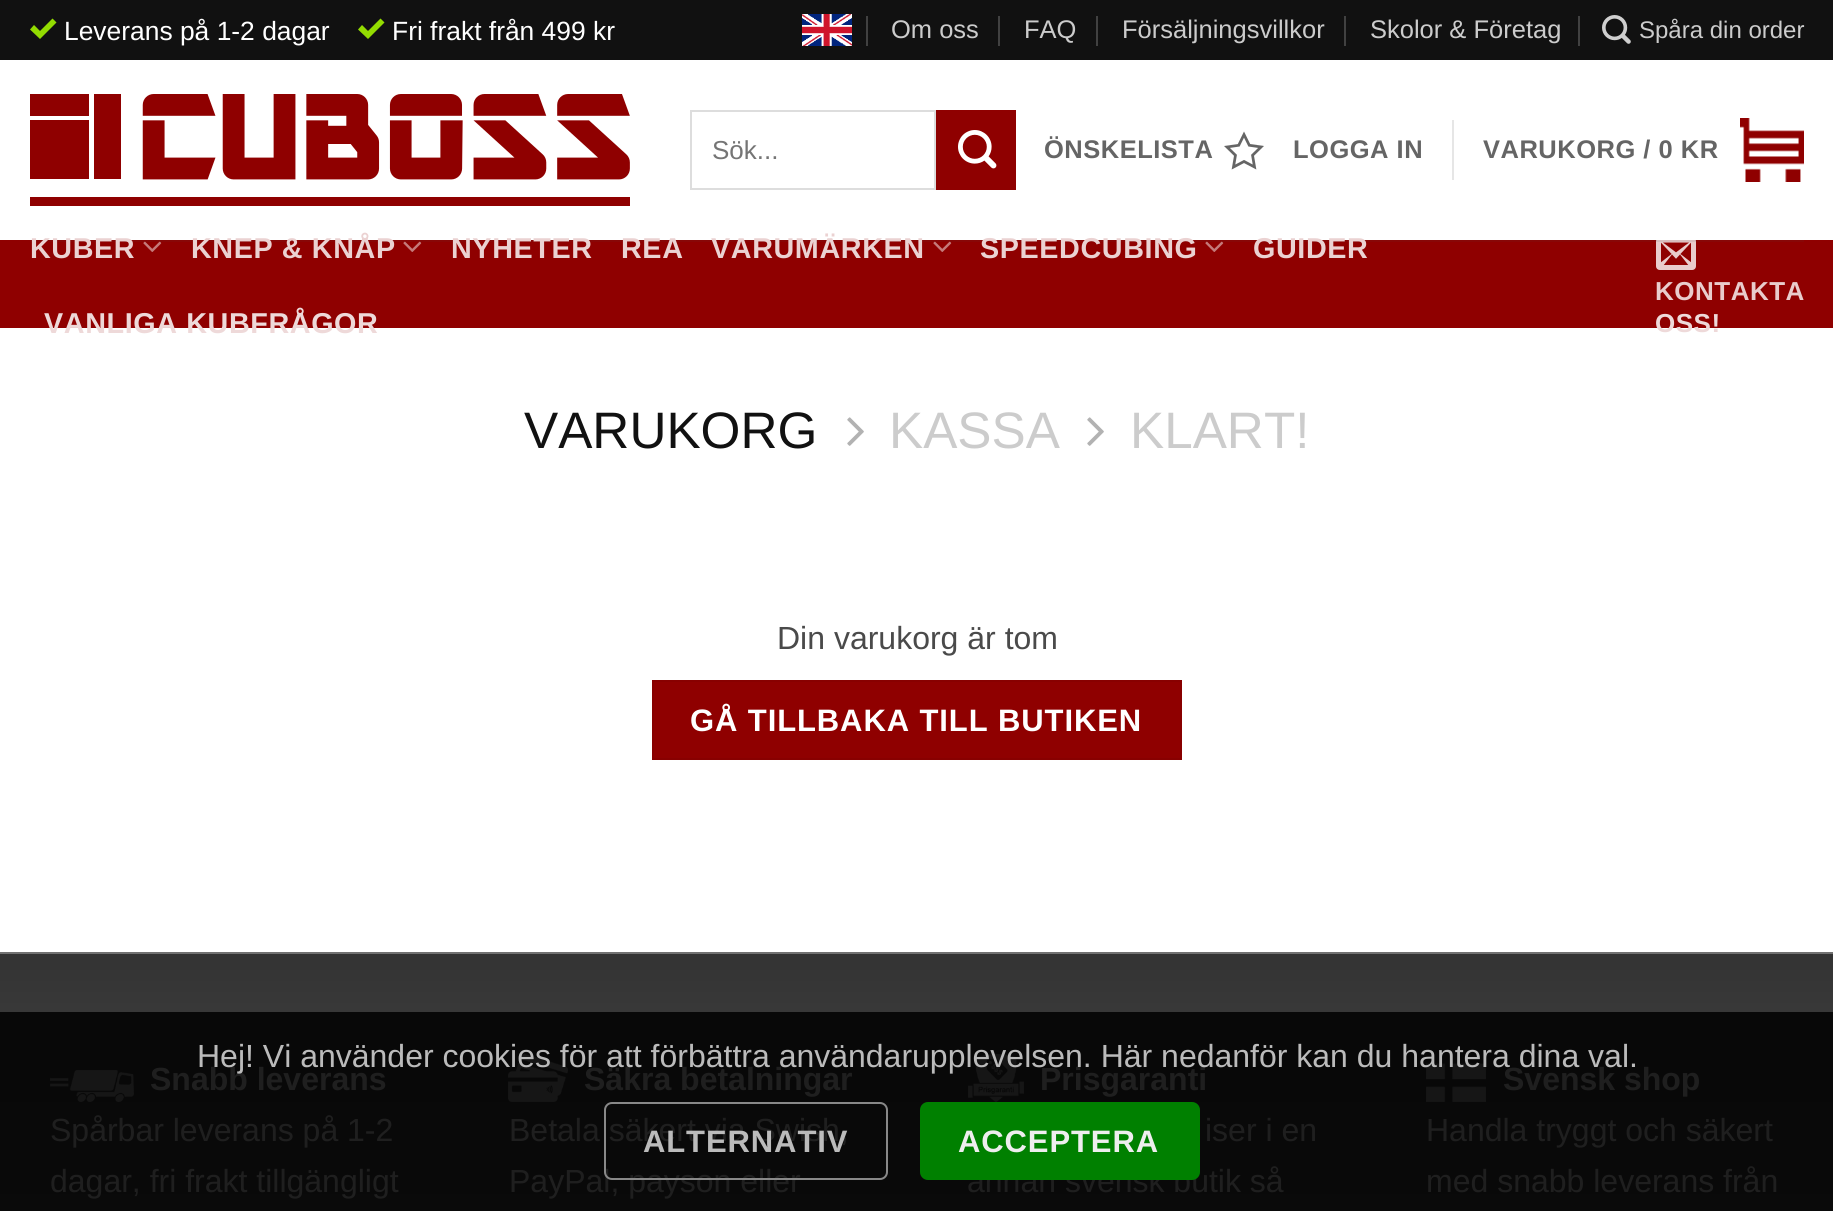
import math
import cairo

surface = cairo.ImageSurface(cairo.FORMAT_RGB24, 1833, 1211)
ctx = cairo.Context(surface)
options = cairo.FontOptions()
options.set_hint_metrics(cairo.HINT_METRICS_OFF)
options.set_hint_style(cairo.HINT_STYLE_NONE)
ctx.set_font_options(options)
ctx.set_miter_limit(4)


def set_color(code):
    ctx.set_source_rgb(*(v / 255 for v in bytes.fromhex(code[-6:])))


def draw_text(x, y, s, family, size, color, bold=False, italic=False):
    ctx.select_font_face(family, cairo.FONT_SLANT_ITALIC if italic else cairo.FONT_SLANT_NORMAL, cairo.FONT_WEIGHT_BOLD if bold else cairo.FONT_WEIGHT_NORMAL)
    ctx.set_font_size(size)
    set_color(color)
    ctx.move_to(x, y)
    ctx.show_text(s)


def draw_spaced(x, y, s, letter, word):
    ctx.move_to(x, y)
    for ch in s:
        ctx.show_text(ch)
        ctx.rel_move_to(letter + word * (ch == ' '), 0)


def fill_rect(x, y, w, h, color):
    set_color(color)
    ctx.rectangle(x, y, w, h)
    ctx.fill()


def rounded_rect(x, y, w, h, r):
    ctx.new_sub_path()
    for i, (u, v) in enumerate([(x + w - r, y + h - r), (x + r, y + h - r), (x + r, y + r), (x + w - r, y + r)]):
        ctx.arc(u, v, r, i * math.pi / 2, (i + 1) * math.pi / 2)
    ctx.close_path()


def draw_image(path, x, y, w, h):
    ctx.save()
    ctx.set_source_surface(cairo.ImageSurface.create_from_png(path), x, y)
    ctx.rectangle(x, y, w, h)
    ctx.fill()
    ctx.restore()


set_color("#ffffff")
ctx.paint()
fill_rect(0, 0, 1833, 60, "#111111")
set_color("#93dc01")
ctx.new_path()
ctx.move_to(52.5, 18.5)
ctx.line_to(40, 31)
ctx.line_to(34, 25)
ctx.line_to(30, 29.5)
ctx.line_to(40, 39)
ctx.line_to(56.5, 22.5)
ctx.close_path()
ctx.fill()
draw_text(64, 40, "Leverans på 1-2 dagar", "Liberation Sans", 26.4, "#ffffff")
set_color("#93dc01")
ctx.new_path()
ctx.move_to(380.5, 18.5)
ctx.line_to(368, 31)
ctx.line_to(362, 25)
ctx.line_to(358, 29.5)
ctx.line_to(368, 39)
ctx.line_to(384.5, 22.5)
ctx.close_path()
ctx.fill()
draw_text(392, 40, "Fri frakt från 499 kr", "Liberation Sans", 26.4, "#ffffff")
draw_image("assets/img1.png", 802, 14, 50, 32)
fill_rect(866, 16, 2, 30, "#414141")
draw_text(891, 38, "Om oss", "Liberation Sans", 25.5, "#cccccc")
fill_rect(998, 16, 2, 30, "#414141")
draw_text(1024, 38, "FAQ", "Liberation Sans", 25.5, "#cccccc")
fill_rect(1096, 16, 2, 30, "#414141")
draw_text(1122, 38, "Försäljningsvillkor", "Liberation Sans", 25.5, "#cccccc")
fill_rect(1344, 16, 2, 30, "#414141")
draw_text(1370, 38, "Skolor & Företag", "Liberation Sans", 25.5, "#cccccc")
fill_rect(1578, 16, 2, 30, "#414141")
draw_image("assets/img2.png", 1602, 15, 29, 29)
draw_text(1639, 38, "Spåra din order", "Liberation Sans", 24, "#cccccc")
draw_image("assets/img3.png", 30, 94, 600, 112)
ctx.rectangle(691, 111, 244, 78)
set_color("#dddddd")
ctx.stroke()
draw_text(712, 159, "Sök...", "Liberation Sans", 26, "#757575")
fill_rect(936, 110, 80, 80, "#8f0000")
draw_image("assets/img4.png", 958, 130, 39, 39)
ctx.select_font_face("Liberation Sans", cairo.FONT_SLANT_NORMAL, cairo.FONT_WEIGHT_BOLD)
ctx.set_font_size(25.5)
set_color("#656565")
draw_spaced(1044, 158, "ÖNSKELISTA", 0.5, 0)
draw_image("assets/img5.png", 1224, 131, 40, 39)
draw_spaced(1293, 158, "LOGGA IN", 0.5, 0)
fill_rect(1452, 120, 2, 60, "#e6e6e6")
set_color("#656565")
draw_spaced(1483, 158, "VARUKORG / 0 KR", 0.5, 0)
draw_image("assets/img6.png", 1740, 118, 64, 64)
fill_rect(0, 240, 1833, 88, "#8f0000")
draw_image("assets/img7.png", 143, 241, 19, 11)
draw_image("assets/img7.png", 403, 241, 19, 11)
draw_image("assets/img7.png", 933, 241, 19, 11)
draw_image("assets/img7.png", 1205, 241, 19, 11)
draw_image("assets/img8.png", 1656, 240, 40, 30)
ctx.set_source_rgba(0.29, 0.29, 0.29, 0.1)
ctx.rectangle(30, 240, 1774, 2)
ctx.fill()
ctx.set_font_size(28.75)
set_color("#ebd2d2")
draw_spaced(30, 258, "KUBER", 0.6, 0)
draw_spaced(191, 258, "KNEP & KNÅP", 0.6, 0)
draw_spaced(451, 258, "NYHETER", 0.6, 0)
draw_spaced(621, 258, "REA", 0.6, 0)
draw_spaced(711, 258, "VARUMÄRKEN", 0.6, 0)
draw_spaced(980, 258, "SPEEDCUBING", 0.6, 0)
draw_spaced(1253, 258, "GUIDER", 0.6, 0)
set_color("#eed9d9")
draw_spaced(44, 333, "VANLIGA KUBFRÅGOR", 0.6, 0)
ctx.set_font_size(26)
set_color("#e9cccc")
draw_spaced(1655, 300, "KONTAKTA", 0.5, 0)
set_color("#eed9d9")
draw_spaced(1655, 332, "OSS!", 0.5, 0)
draw_text(524, 448, "VARUKORG", "Liberation Sans", 51.25, "#111111")
draw_image("assets/img9.png", 847, 417, 17, 29)
draw_text(889, 448, "KASSA", "Liberation Sans", 51.25, "#cccccc")
draw_image("assets/img9.png", 1087, 417, 17, 29)
draw_text(1130, 448, "KLART!", "Liberation Sans", 51.25, "#cccccc")
draw_text(777, 649, "Din varukorg är tom", "Liberation Sans", 32, "#4a4a4a")
set_color("#8f0000")
ctx.rectangle(653, 681, 528, 78)
ctx.fill_preserve()
set_color("#880000")
ctx.stroke()
ctx.select_font_face("Liberation Sans", cairo.FONT_SLANT_NORMAL, cairo.FONT_WEIGHT_BOLD)
ctx.set_font_size(31)
set_color("#ffffff")
draw_spaced(690, 731, "GÅ TILLBAKA TILL BUTIKEN", 0.9, 0)
gradient = cairo.LinearGradient(917, 954, 917, 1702)
gradient.add_color_stop_rgba(0, 0.2, 0.2, 0.2, 1)
gradient.add_color_stop_rgba(1, 0.467, 0.467, 0.467, 1)
ctx.set_source(gradient)
ctx.rectangle(0, 954, 1833, 58)
ctx.fill()
gradient = cairo.LinearGradient(917, 954, 917, 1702)
gradient.add_color_stop_rgba(0, 0.027, 0.027, 0.027, 1)
gradient.add_color_stop_rgba(1, 0.059, 0.059, 0.059, 1)
ctx.set_source(gradient)
ctx.rectangle(0, 1012, 1833, 199)
ctx.fill()
fill_rect(0, 952, 1833, 2, "#717171")
draw_image("assets/img10.png", 50, 1070, 84, 32)
draw_text(150, 1090, "Snabb leverans", "Liberation Sans", 32, "#1f1f1f", bold=True)
draw_text(50, 1141, "Spårbar leverans på 1-2", "Liberation Sans", 32, "#1f1f1f")
draw_text(50, 1192, "dagar, fri frakt tillgängligt", "Liberation Sans", 32, "#1f1f1f")
draw_image("assets/img11.png", 508, 1054, 60, 48)
draw_text(584, 1090, "Säkra betalningar", "Liberation Sans", 32, "#1f1f1f", bold=True)
draw_text(509, 1141, "Betala säkert via Swish,", "Liberation Sans", 32, "#1f1f1f")
draw_text(509, 1192, "PayPal, payson eller", "Liberation Sans", 32, "#1f1f1f")
draw_image("assets/img12.png", 968, 1054, 56, 48)
draw_text(1040, 1090, "Prisgaranti", "Liberation Sans", 32, "#1f1f1f", bold=True)
draw_text(1205, 1141, "iser i en", "Liberation Sans", 32, "#1f1f1f")
draw_text(967, 1192, "annan svensk butik så", "Liberation Sans", 32, "#1f1f1f")
draw_image("assets/img13.png", 1426, 1063, 60, 39)
draw_text(1503, 1090, "Svensk shop", "Liberation Sans", 32, "#1f1f1f", bold=True)
draw_text(1426, 1141, "Handla tryggt och säkert", "Liberation Sans", 32, "#1f1f1f")
draw_text(1426, 1192, "med snabb leverans från", "Liberation Sans", 32, "#1f1f1f")
draw_text(197, 1067, "Hej! Vi använder cookies för att förbättra användarupplevelsen. Här nedanför kan du hantera dina val.", "Liberation Sans", 32, "#bbbbbb")
rounded_rect(605, 1103, 282, 76, 7)
set_color("#888888")
ctx.stroke()
ctx.select_font_face("Liberation Sans", cairo.FONT_SLANT_NORMAL, cairo.FONT_WEIGHT_BOLD)
ctx.set_font_size(31)
set_color("#bbbbbb")
draw_spaced(643, 1152, "ALTERNATIV", 0.9, 0)
set_color("#008000")
rounded_rect(920, 1102, 280, 78, 8)
ctx.fill()
set_color("#eeeeee")
draw_spaced(958, 1152, "ACCEPTERA", 0.9, 0)
surface.write_to_png("output.png")
